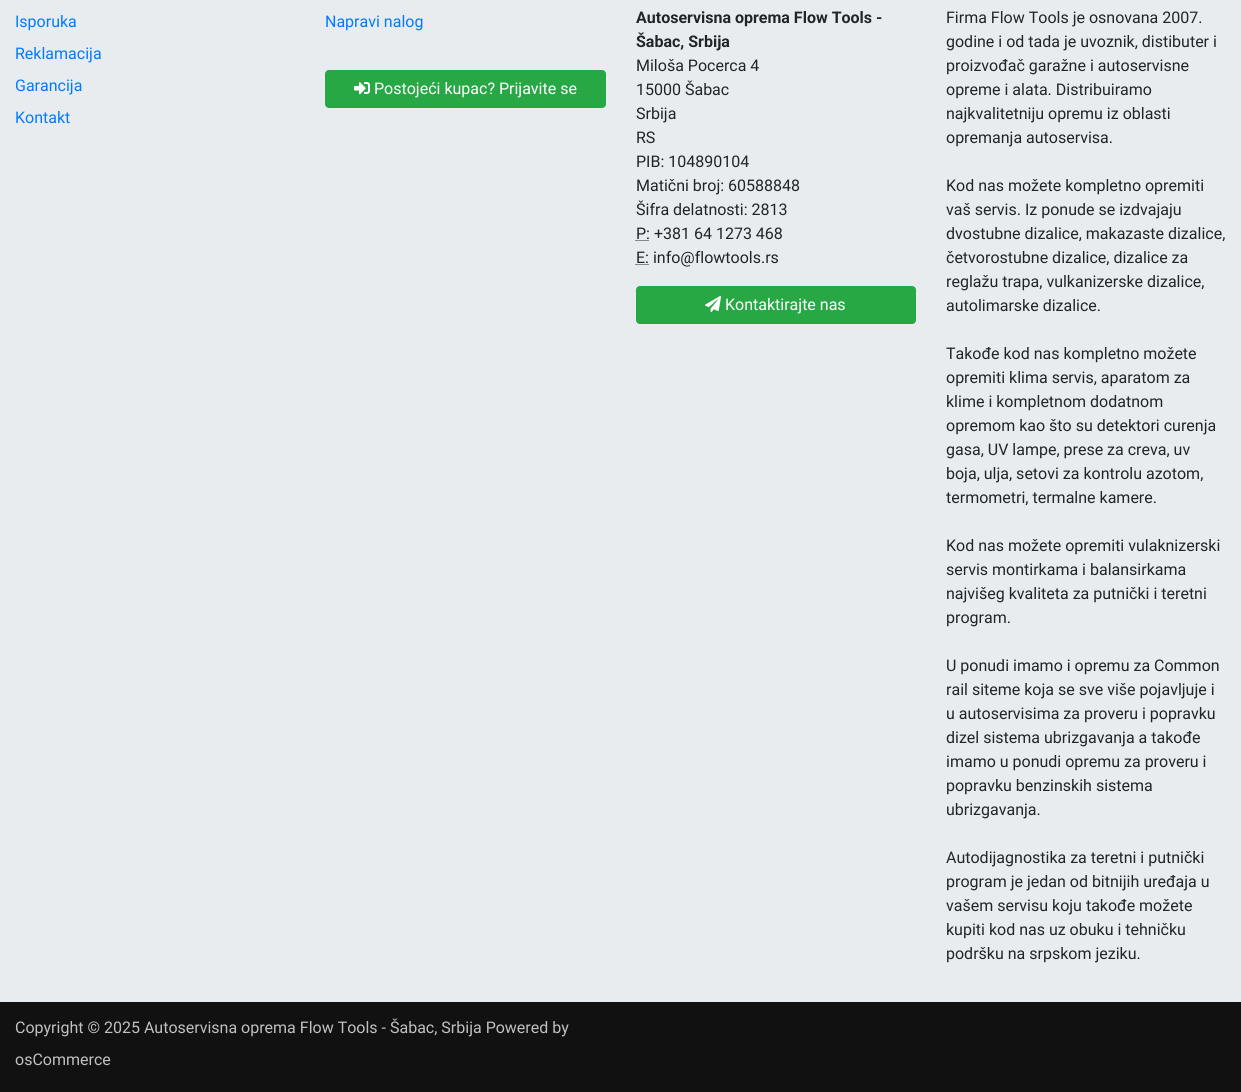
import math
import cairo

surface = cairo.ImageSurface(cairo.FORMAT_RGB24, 1241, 1092)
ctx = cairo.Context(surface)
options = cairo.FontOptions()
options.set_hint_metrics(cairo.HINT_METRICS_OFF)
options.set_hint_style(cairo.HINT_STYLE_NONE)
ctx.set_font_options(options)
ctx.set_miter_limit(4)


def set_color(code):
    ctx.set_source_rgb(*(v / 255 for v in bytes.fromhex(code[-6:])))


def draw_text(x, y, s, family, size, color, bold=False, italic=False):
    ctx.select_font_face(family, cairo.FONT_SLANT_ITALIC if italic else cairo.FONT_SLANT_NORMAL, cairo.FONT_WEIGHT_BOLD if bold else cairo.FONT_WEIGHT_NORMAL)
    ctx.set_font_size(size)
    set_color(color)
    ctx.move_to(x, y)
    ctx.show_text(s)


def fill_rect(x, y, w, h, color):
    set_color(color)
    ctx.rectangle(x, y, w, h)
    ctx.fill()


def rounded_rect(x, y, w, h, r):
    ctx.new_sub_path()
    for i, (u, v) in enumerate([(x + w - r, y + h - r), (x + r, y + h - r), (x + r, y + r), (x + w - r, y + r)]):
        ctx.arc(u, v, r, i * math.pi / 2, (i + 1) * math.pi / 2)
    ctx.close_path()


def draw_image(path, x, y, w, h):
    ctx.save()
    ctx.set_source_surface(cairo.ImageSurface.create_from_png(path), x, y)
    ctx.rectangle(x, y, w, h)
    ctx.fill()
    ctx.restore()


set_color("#e9ecef")
ctx.paint()
draw_text(15, 27, "Isporuka", "Roboto", 16, "#007bff")
draw_text(15, 59, "Reklamacija", "Roboto", 16, "#007bff")
draw_text(15, 91, "Garancija", "Roboto", 16, "#007bff")
draw_text(15, 123, "Kontakt", "Roboto", 16, "#007bff")
draw_text(325, 27, "Napravi nalog", "Roboto", 16, "#007bff")
set_color("#28a745")
rounded_rect(325.5, 70.5, 280, 37, 3.5)
ctx.fill_preserve()
ctx.set_line_width(1)
ctx.stroke()
draw_image("assets/img1.png", 354, 82, 16, 13)
draw_text(374, 94, "Postojeći kupac? Prijavite se", "Roboto", 16, "#ffffff")
draw_text(636, 23, "Autoservisna oprema Flow Tools -", "Roboto", 16, "#212529", bold=True)
draw_text(636, 47, "Šabac, Srbija", "Roboto", 16, "#212529", bold=True)
draw_text(636, 71, "Miloša Pocerca 4", "Roboto", 16, "#212529")
draw_text(636, 95, "15000 Šabac", "Roboto", 16, "#212529")
draw_text(636, 119, "Srbija", "Roboto", 16, "#212529")
draw_text(636, 143, "RS", "Roboto", 16, "#212529")
draw_text(636, 167, "PIB: 104890104", "Roboto", 16, "#212529")
draw_text(636, 191, "Matični broj: 60588848", "Roboto", 16, "#212529")
draw_text(636, 215, "Šifra delatnosti: 2813", "Roboto", 16, "#212529")
draw_text(636, 239, "P: +381 64 1273 468", "Roboto", 16, "#212529")
ctx.new_path()
ctx.move_to(635.5, 240.5)
ctx.line_to(649.5, 240.5)
ctx.set_dash([1, 1])
ctx.stroke()
ctx.new_path()
ctx.move_to(635.5, 264.5)
ctx.line_to(648.5, 264.5)
ctx.stroke()
draw_text(636, 263, "E: info@flowtools.rs", "Roboto", 16, "#212529")
set_color("#28a745")
rounded_rect(636.5, 286.5, 279, 37, 3.5)
ctx.fill_preserve()
ctx.set_dash([])
ctx.stroke()
draw_image("assets/img2.png", 705, 296, 16, 16)
draw_text(725, 310, "Kontaktirajte nas", "Roboto", 16, "#ffffff")
draw_text(946, 23, "Firma Flow Tools je osnovana 2007.", "Roboto", 16, "#212529")
draw_text(946, 47, "godine i od tada je uvoznik, distibuter i", "Roboto", 16, "#212529")
draw_text(946, 71, "proizvođač garažne i autoservisne", "Roboto", 16, "#212529")
draw_text(946, 95, "opreme i alata. Distribuiramo", "Roboto", 16, "#212529")
draw_text(946, 119, "najkvalitetniju opremu iz oblasti", "Roboto", 16, "#212529")
draw_text(946, 143, "opremanja autoservisa.", "Roboto", 16, "#212529")
draw_text(946, 191, "Kod nas možete kompletno opremiti", "Roboto", 16, "#212529")
draw_text(946, 215, "vaš servis. Iz ponude se izdvajaju", "Roboto", 16, "#212529")
draw_text(946, 239, "dvostubne dizalice, makazaste dizalice,", "Roboto", 16, "#212529")
draw_text(946, 263, "četvorostubne dizalice, dizalice za", "Roboto", 16, "#212529")
draw_text(946, 287, "reglažu trapa, vulkanizerske dizalice,", "Roboto", 16, "#212529")
draw_text(946, 311, "autolimarske dizalice.", "Roboto", 16, "#212529")
draw_text(946, 359, "Takođe kod nas kompletno možete", "Roboto", 16, "#212529")
draw_text(946, 383, "opremiti klima servis, aparatom za", "Roboto", 16, "#212529")
draw_text(946, 407, "klime i kompletnom dodatnom", "Roboto", 16, "#212529")
draw_text(946, 431, "opremom kao što su detektori curenja", "Roboto", 16, "#212529")
draw_text(946, 455, "gasa, UV lampe, prese za creva, uv", "Roboto", 16, "#212529")
draw_text(946, 479, "boja, ulja, setovi za kontrolu azotom,", "Roboto", 16, "#212529")
draw_text(946, 503, "termometri, termalne kamere.", "Roboto", 16, "#212529")
draw_text(946, 551, "Kod nas možete opremiti vulaknizerski", "Roboto", 16, "#212529")
draw_text(946, 575, "servis montirkama i balansirkama", "Roboto", 16, "#212529")
draw_text(946, 599, "najvišeg kvaliteta za putnički i teretni", "Roboto", 16, "#212529")
draw_text(946, 623, "program.", "Roboto", 16, "#212529")
draw_text(946, 671, "U ponudi imamo i opremu za Common", "Roboto", 16, "#212529")
draw_text(946, 695, "rail siteme koja se sve više pojavljuje i", "Roboto", 16, "#212529")
draw_text(946, 719, "u autoservisima za proveru i popravku", "Roboto", 16, "#212529")
draw_text(946, 743, "dizel sistema ubrizgavanja a takođe", "Roboto", 16, "#212529")
draw_text(946, 767, "imamo u ponudi opremu za proveru i", "Roboto", 16, "#212529")
draw_text(946, 791, "popravku benzinskih sistema", "Roboto", 16, "#212529")
draw_text(946, 815, "ubrizgavanja.", "Roboto", 16, "#212529")
draw_text(946, 863, "Autodijagnostika za teretni i putnički", "Roboto", 16, "#212529")
draw_text(946, 887, "program je jedan od bitnijih uređaja u", "Roboto", 16, "#212529")
draw_text(946, 911, "vašem servisu koju takođe možete", "Roboto", 16, "#212529")
draw_text(946, 935, "kupiti kod nas uz obuku i tehničku", "Roboto", 16, "#212529")
draw_text(946, 959, "podršku na srpskom jeziku.", "Roboto", 16, "#212529")
fill_rect(0, 1002, 1241, 90, "#111111")
draw_text(15, 1033, "Copyright © 2025 Autoservisna oprema Flow Tools - Šabac, Srbija Powered by", "Roboto", 16, "#c0c0c0")
draw_text(15, 1065, "osCommerce", "Roboto", 16, "#c0c0c0")
surface.write_to_png("output.png")
